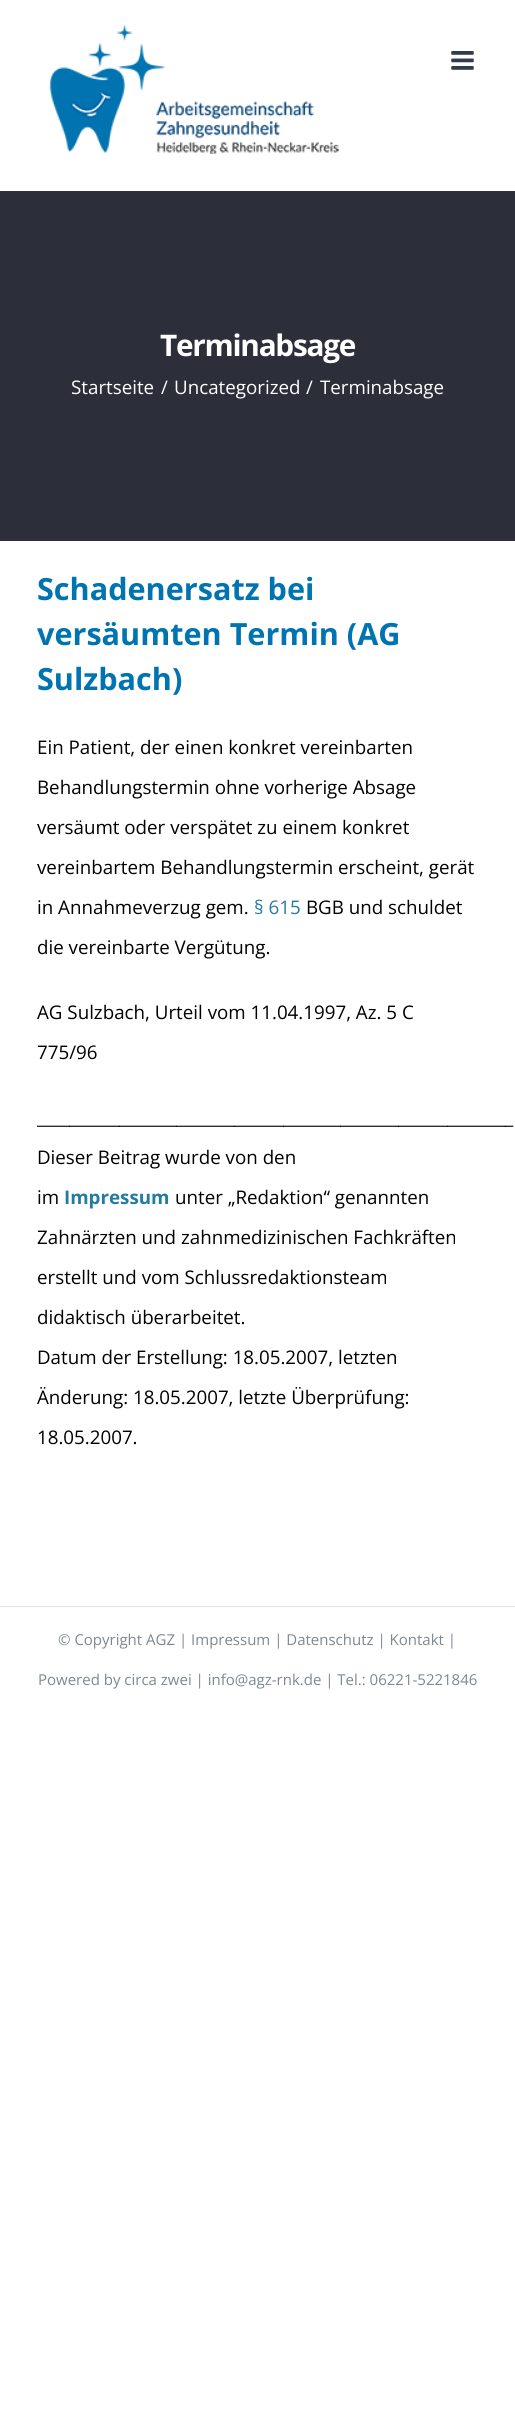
import math
import cairo

surface = cairo.ImageSurface(cairo.FORMAT_RGB24, 515, 2430)
ctx = cairo.Context(surface)
options = cairo.FontOptions()
options.set_hint_metrics(cairo.HINT_METRICS_OFF)
options.set_hint_style(cairo.HINT_STYLE_NONE)
ctx.set_font_options(options)
ctx.set_miter_limit(4)


def set_color(code):
    ctx.set_source_rgb(*(v / 255 for v in bytes.fromhex(code[-6:])))


def draw_text(x, y, s, family, size, color, bold=False, italic=False):
    ctx.select_font_face(family, cairo.FONT_SLANT_ITALIC if italic else cairo.FONT_SLANT_NORMAL, cairo.FONT_WEIGHT_BOLD if bold else cairo.FONT_WEIGHT_NORMAL)
    ctx.set_font_size(size)
    set_color(color)
    ctx.move_to(x, y)
    ctx.show_text(s)


def draw_spaced(x, y, s, letter, word):
    ctx.move_to(x, y)
    for ch in s:
        ctx.show_text(ch)
        ctx.rel_move_to(letter + word * (ch == ' '), 0)


def fill_rect(x, y, w, h, color):
    set_color(color)
    ctx.rectangle(x, y, w, h)
    ctx.fill()


def draw_image(path, x, y, w, h):
    ctx.save()
    ctx.set_source_surface(cairo.ImageSurface.create_from_png(path), x, y)
    ctx.rectangle(x, y, w, h)
    ctx.fill()
    ctx.restore()


set_color("#ffffff")
ctx.paint()
draw_image("assets/img1.png", 49, 25, 290, 129)
draw_image("assets/img2.png", 451, 51, 23, 19)
fill_rect(0, 191, 515, 350, "#2c2f39")
ctx.select_font_face("Open Sans", cairo.FONT_SLANT_NORMAL, cairo.FONT_WEIGHT_BOLD)
ctx.set_font_size(29.75)
set_color("#ffffff")
draw_spaced(160, 356, "Terminabsage", -1.25, 0)
draw_text(71, 394, "Startseite", "Open Sans", 18.75, "#ffffff")
draw_text(161, 394, "/", "Open Sans", 18.75, "#ffffff")
draw_text(174, 394, "Uncategorized", "Open Sans", 18.75, "#ffffff")
draw_text(306, 394, "/", "Open Sans", 18.75, "#ffffff")
draw_text(320, 394, "Terminabsage", "Open Sans", 18.75, "#ffffff")
draw_text(37, 600, "Schadenersatz bei", "Open Sans", 30.6, "#0074b1", bold=True)
draw_text(37, 645, "versäumten Termin (AG", "Open Sans", 30.6, "#0074b1", bold=True)
draw_text(37, 690, "Sulzbach)", "Open Sans", 30.6, "#0074b1", bold=True)
draw_text(37, 754, "Ein Patient, der einen konkret vereinbarten", "Open Sans", 18.75, "#000000")
draw_text(37, 794, "Behandlungstermin ohne vorherige Absage", "Open Sans", 18.75, "#000000")
draw_text(37, 834, "versäumt oder verspätet zu einem konkret", "Open Sans", 18.75, "#000000")
draw_text(37, 874, "vereinbartem Behandlungstermin erscheint, gerät", "Open Sans", 18.75, "#000000")
draw_text(37, 914, "in Annahmeverzug gem.", "Open Sans", 18.75, "#000000")
draw_text(254, 914, "§ 615", "Open Sans", 18.75, "#247ba0")
draw_text(306, 914, "BGB und schuldet", "Open Sans", 18.75, "#000000")
draw_text(37, 954, "die vereinbarte Vergütung.", "Open Sans", 18.75, "#000000")
draw_text(37, 1019, "AG Sulzbach, Urteil vom 11.04.1997, Az. 5 C", "Open Sans", 18.75, "#000000")
draw_text(37, 1059, "775/96", "Open Sans", 18.75, "#000000")
draw_text(37, 1124, "__________________________________________________________", "Open Sans", 18.75, "#000000")
draw_text(37, 1164, "Dieser Beitrag wurde von den", "Open Sans", 18.75, "#000000")
draw_text(37, 1204, "im", "Open Sans", 18.75, "#000000")
draw_text(64, 1204, "Impressum", "Open Sans", 18.75, "#247ba0", bold=True)
draw_text(175, 1204, "unter „Redaktion“ genannten", "Open Sans", 18.75, "#000000")
draw_text(37, 1244, "Zahnärzten und zahnmedizinischen Fachkräften", "Open Sans", 18.75, "#000000")
draw_text(37, 1284, "erstellt und vom Schlussredaktionsteam", "Open Sans", 18.75, "#000000")
draw_text(37, 1324, "didaktisch überarbeitet.", "Open Sans", 18.75, "#000000")
draw_text(37, 1364, "Datum der Erstellung: 18.05.2007, letzten", "Open Sans", 18.75, "#000000")
draw_text(37, 1404, "Änderung: 18.05.2007, letzte Überprüfung:", "Open Sans", 18.75, "#000000")
draw_text(37, 1444, "18.05.2007.", "Open Sans", 18.75, "#000000")
fill_rect(0, 1606, 515, 1, "#e7e4e2")
draw_text(58, 1645, "© Copyright AGZ | Impressum | Datenschutz | Kontakt |", "Open Sans", 15, "#7e8890")
draw_text(38, 1685, "Powered by circa zwei | info@agz-rnk.de | Tel.: 06221-5221846", "Open Sans", 15, "#7e8890")
surface.write_to_png("output.png")
